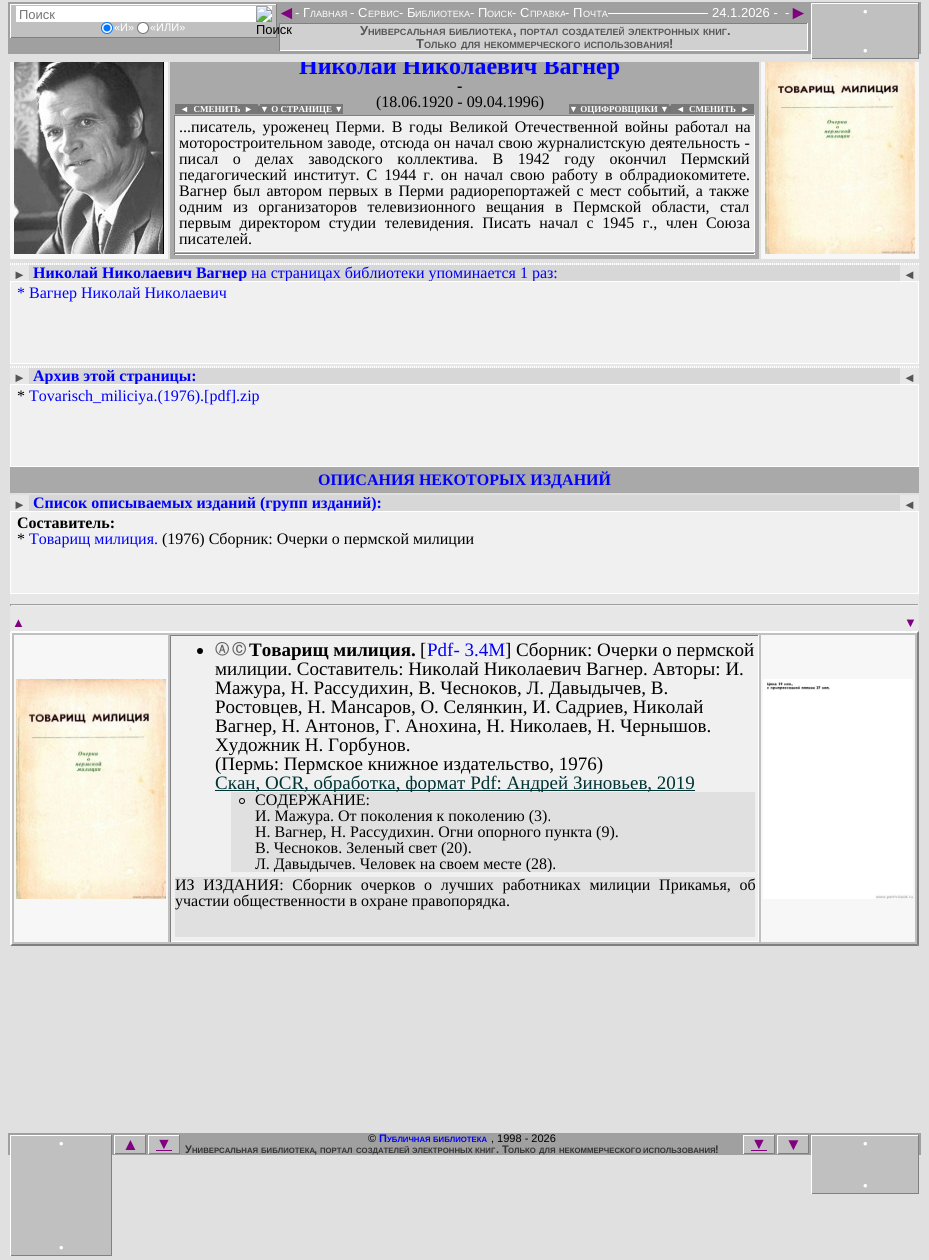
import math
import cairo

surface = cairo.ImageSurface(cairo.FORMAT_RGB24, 929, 1260)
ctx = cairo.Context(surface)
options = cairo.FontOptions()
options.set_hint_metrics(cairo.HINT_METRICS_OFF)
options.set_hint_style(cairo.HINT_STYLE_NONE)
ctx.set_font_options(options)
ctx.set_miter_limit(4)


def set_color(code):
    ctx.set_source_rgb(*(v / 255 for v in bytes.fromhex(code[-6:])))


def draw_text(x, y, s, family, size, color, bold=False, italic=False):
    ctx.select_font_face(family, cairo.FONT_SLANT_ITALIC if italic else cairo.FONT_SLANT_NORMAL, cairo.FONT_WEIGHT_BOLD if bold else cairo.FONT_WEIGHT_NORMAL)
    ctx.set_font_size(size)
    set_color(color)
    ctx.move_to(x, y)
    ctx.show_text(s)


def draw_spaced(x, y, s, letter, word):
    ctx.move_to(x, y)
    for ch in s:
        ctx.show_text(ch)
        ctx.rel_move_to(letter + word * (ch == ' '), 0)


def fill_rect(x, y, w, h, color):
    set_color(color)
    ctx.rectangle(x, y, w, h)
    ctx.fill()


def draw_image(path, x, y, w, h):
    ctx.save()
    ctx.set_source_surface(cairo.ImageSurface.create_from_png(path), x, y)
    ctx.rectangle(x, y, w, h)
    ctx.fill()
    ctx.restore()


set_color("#e0e0e0")
ctx.paint()
fill_rect(170, 62, 589, 197, "#a9a9a9")
draw_text(299, 74, "Николай Николаевич Вагнер", "Liberation Serif", 24, "#0000ff", bold=True)
fill_rect(299, 57, 259, 5, "#e0e0e0")
fill_rect(8, 2, 913, 52, "#a0a0a0")
fill_rect(11, 5, 265, 32, "#c0c0c0")
fill_rect(10, 4, 267, 1, "#ffffff")
fill_rect(276, 4, 1, 34, "#808080")
fill_rect(10, 37, 267, 1, "#808080")
fill_rect(10, 4, 1, 34, "#ffffff")
fill_rect(16, 6, 240, 16, "#ffffff")
draw_text(19, 19, "Поиск", "Liberation Sans", 13, "#757575")
set_color("#ffffff")
ctx.new_path()
ctx.arc(107, 28, 5.5, 0, 2 * math.pi)
ctx.fill_preserve()
set_color("#0075ff")
ctx.set_line_width(1)
ctx.stroke()
ctx.arc(107, 28, 3.5, 0, 2 * math.pi)
ctx.fill()
draw_text(114, 31, "«И»", "Liberation Sans", 11, "#ffffff")
ctx.new_path()
ctx.arc(143, 28, 5.5, 0, 2 * math.pi)
ctx.fill_preserve()
set_color("#767676")
ctx.stroke()
draw_text(150, 31, "«ИЛИ»", "Liberation Sans", 11, "#ffffff")
fill_rect(262, 6, 10, 16, "#ffffff")
draw_image("assets/img1.png", 256, 6, 16, 16)
fill_rect(280, 24, 527, 26, "#d0d0d0")
fill_rect(279, 23, 529, 1, "#808080")
fill_rect(807, 23, 1, 28, "#ffffff")
fill_rect(279, 50, 529, 1, "#ffffff")
fill_rect(279, 23, 1, 28, "#808080")
draw_text(256, 34, "Поиск", "Liberation Sans", 13, "#000000")
draw_text(277, 19, "◄", "Liberation Sans", 19, "#800080")
draw_text(295, 17, "- Г", "Liberation Sans", 13, "#ffffff")
draw_text(310, 17, "ЛАВНАЯ", "Liberation Sans", 9.1, "#ffffff")
draw_text(350, 17, "- С", "Liberation Sans", 13, "#ffffff")
draw_text(368, 17, "ЕРВИС", "Liberation Sans", 9.1, "#ffffff")
draw_text(399, 17, "- Б", "Liberation Sans", 13, "#ffffff")
draw_text(415, 17, "ИБЛИОТЕКА", "Liberation Sans", 9.1, "#ffffff")
fill_rect(470, 16, 1, 3, "#a0a0a0")
draw_text(470, 17, "- П", "Liberation Sans", 13, "#ffffff")
draw_text(487, 17, "ОИСК", "Liberation Sans", 9.1, "#ffffff")
fill_rect(512, 16, 1, 3, "#a0a0a0")
draw_text(512, 17, "- С", "Liberation Sans", 13, "#ffffff")
draw_text(530, 17, "ПРАВКА", "Liberation Sans", 9.1, "#ffffff")
fill_rect(565, 15, 1, 4, "#a0a0a0")
draw_text(565, 17, "- П", "Liberation Sans", 13, "#ffffff")
fill_rect(607, 13, 101, 1, "#ffffff")
fill_rect(607, 12, 1, 2, "#a0a0a0")
draw_text(583, 17, "ОЧТА", "Liberation Sans", 9.1, "#ffffff")
draw_text(712, 17, "24.1.2026 -", "Liberation Sans", 13, "#ffffff")
draw_text(785, 17, "-", "Liberation Sans", 13, "#ffffff")
draw_text(789, 19, "►", "Liberation Sans", 19, "#800080")
draw_text(360, 35, "У", "Liberation Sans", 13, "#555555", bold=True)
draw_text(368, 35, "НИВЕРСАЛЬНАЯ", "Liberation Sans", 9.1, "#555555", bold=True)
draw_text(449, 35, "БИБЛИОТЕКА", "Liberation Sans", 9.1, "#555555", bold=True)
draw_text(513, 35, ",", "Liberation Sans", 13, "#555555", bold=True)
draw_text(520, 35, "ПОРТАЛ", "Liberation Sans", 9.1, "#555555", bold=True)
draw_text(562, 35, "СОЗДАТЕЛЕЙ", "Liberation Sans", 9.1, "#555555", bold=True)
draw_text(628, 35, "ЭЛЕКТРОННЫХ", "Liberation Sans", 9.1, "#555555", bold=True)
draw_text(703, 35, "КНИГ", "Liberation Sans", 9.1, "#555555", bold=True)
draw_text(727, 35, ".", "Liberation Sans", 13, "#555555", bold=True)
draw_text(416, 48, "Т", "Liberation Sans", 13, "#555555", bold=True)
draw_text(424, 48, "ОЛЬКО", "Liberation Sans", 9.1, "#555555", bold=True)
draw_text(461, 48, "ДЛЯ", "Liberation Sans", 9.1, "#555555", bold=True)
draw_text(484, 48, "НЕКОММЕРЧЕСКОГО", "Liberation Sans", 9.1, "#555555", bold=True)
draw_text(584, 48, "ИСПОЛЬЗОВАНИЯ", "Liberation Sans", 9.1, "#555555", bold=True)
draw_text(669, 48, "!", "Liberation Sans", 13, "#555555", bold=True)
fill_rect(812, 4, 106, 54, "#c0c0c0")
fill_rect(811, 3, 108, 1, "#ffffff")
fill_rect(918, 3, 1, 56, "#808080")
fill_rect(811, 58, 108, 1, "#808080")
fill_rect(811, 3, 1, 56, "#ffffff")
draw_text(863, 16, "•", "Liberation Sans", 13, "#ffffff")
draw_text(863, 55, "•", "Liberation Sans", 13, "#ffffff")
fill_rect(10, 62, 158, 197, "#f7f7f7")
draw_image("assets/img2.png", 14, 62, 150, 192)
draw_text(457, 91, "-", "Liberation Serif", 16, "#000000", bold=True)
fill_rect(175, 104, 83, 10, "#777777")
draw_text(180, 112, "◄  СМЕНИТЬ", "Liberation Serif", 9, "#ffffff", bold=True)
draw_text(244, 112, "►", "Liberation Serif", 9, "#ffffff", bold=True)
draw_text(258, 112, "|", "Liberation Serif", 9, "#000000", bold=True)
fill_rect(260, 104, 83, 10, "#777777")
draw_text(260, 112, "▼ О СТРАНИЦЕ ▼", "Liberation Serif", 9, "#ffffff", bold=True)
draw_text(376, 107, "(18.06.1920 - 09.04.1996)", "Liberation Serif", 16, "#000000")
fill_rect(569, 104, 100, 10, "#777777")
draw_text(569, 112, "▼ ОЦИФРОВЩИКИ ▼", "Liberation Serif", 9, "#ffffff", bold=True)
draw_text(669, 112, "|", "Liberation Serif", 9, "#000000", bold=True)
fill_rect(671, 104, 83, 10, "#777777")
draw_text(676, 112, "◄", "Liberation Serif", 9, "#ffffff", bold=True)
draw_text(689, 112, "СМЕНИТЬ  ►", "Liberation Serif", 9, "#ffffff", bold=True)
fill_rect(175, 116, 579, 135, "#f0f0f0")
fill_rect(174, 115, 581, 1, "#808080")
fill_rect(754, 115, 1, 137, "#ffffff")
fill_rect(174, 251, 581, 1, "#ffffff")
fill_rect(174, 115, 1, 137, "#808080")
ctx.select_font_face("Liberation Serif")
ctx.set_font_size(16)
set_color("#000000")
draw_spaced(179, 132, "...писатель, уроженец Перми. В годы Великой Отечественной войны работал на", 0, 2.75)
draw_spaced(179, 148, "моторостроительном заводе, отсюда он начал свою журналистскую деятельность -", 0, 0.5)
draw_spaced(179, 164, "писал о делах заводского коллектива. В 1942 году окончил Пермский", 0, 10.5)
draw_spaced(179, 180, "педагогический институт. С 1944 г. он начал свою работу в облрадиокомитете.", 0, 3)
draw_spaced(179, 196, "Вагнер был автором первых в Перми радиорепортажей с мест событий, а также", 0, 2.25)
draw_spaced(179, 212, "одним из организаторов телевизионного вещания в Пермской области, стал", 0, 6.5)
draw_spaced(179, 228, "первым директором студии телевидения. Писать начал с 1945 г., член Союза", 0, 4.5)
draw_text(179, 244, "писателей.", "Liberation Serif", 16, "#000000")
fill_rect(174, 253, 581, 1, "#808080")
fill_rect(754, 253, 1, 2, "#ffffff")
fill_rect(174, 254, 581, 1, "#ffffff")
fill_rect(174, 253, 1, 2, "#808080")
fill_rect(761, 62, 158, 197, "#f7f7f7")
draw_image("assets/img3.png", 765, 62, 150, 192)
fill_rect(10, 263, 909, 105, "#e7e7e7")
ctx.new_path()
ctx.move_to(10, 263.5)
ctx.line_to(919, 263.5)
set_color("#ffffff")
ctx.set_dash([1, 1])
ctx.stroke()
fill_rect(918, 263, 1, 2, "#ffffff")
ctx.new_path()
ctx.move_to(10, 264.5)
ctx.line_to(919, 264.5)
ctx.stroke()
draw_text(13, 279, "►", "Liberation Serif", 13, "#555555")
fill_rect(29, 265, 871, 16, "#d7d7d7")
draw_text(33, 278, "Николай Николаевич Вагнер", "Liberation Serif", 16, "#0000ff", bold=True)
draw_text(251, 278, "на страницах библиотеки упоминается 1 раз:", "Liberation Serif", 16, "#0000ff")
draw_text(903, 279, "◄", "Liberation Serif", 13, "#555555")
set_color("#f0f0f0")
ctx.rectangle(10.5, 281.5, 908, 82)
ctx.fill_preserve()
set_color("#ffffff")
ctx.set_dash([])
ctx.stroke()
draw_text(17, 298, "* Вагнер Николай Николаевич", "Liberation Serif", 16, "#0000ff")
ctx.new_path()
ctx.move_to(10, 366.5)
ctx.line_to(919, 366.5)
set_color("#ffffff")
ctx.set_dash([1, 1])
ctx.stroke()
fill_rect(918, 366, 1, 2, "#ffffff")
ctx.new_path()
ctx.move_to(10, 367.5)
ctx.line_to(919, 367.5)
ctx.stroke()
fill_rect(10, 368, 19, 16, "#e7e7e7")
draw_text(13, 382, "►", "Liberation Serif", 13, "#555555")
fill_rect(29, 368, 871, 16, "#d7d7d7")
draw_text(33, 381, "Архив этой страницы:", "Liberation Serif", 16, "#0000ff", bold=True)
fill_rect(900, 368, 19, 16, "#e7e7e7")
draw_text(903, 382, "◄", "Liberation Serif", 13, "#555555")
set_color("#f0f0f0")
ctx.rectangle(10.5, 384.5, 908, 82)
ctx.fill_preserve()
set_color("#ffffff")
ctx.set_dash([])
ctx.stroke()
draw_text(17, 401, "*", "Liberation Serif", 16, "#000000")
draw_text(29, 401, "Tovarisch_miliciya.(1976).[pdf].zip", "Liberation Serif", 16, "#0000ff")
fill_rect(10, 467, 909, 26, "#a9a9a9")
draw_text(318, 485, "ОПИСАНИЯ НЕКОТОРЫХ ИЗДАНИЙ", "Liberation Serif", 16, "#0000ff", bold=True)
fill_rect(10, 594, 909, 37, "#e7e7e7")
fill_rect(10, 495, 19, 16, "#e7e7e7")
draw_text(13, 509, "►", "Liberation Serif", 13, "#555555")
fill_rect(29, 495, 871, 16, "#d7d7d7")
draw_text(33, 508, "Список описываемых изданий (групп изданий):", "Liberation Serif", 16, "#0000ff", bold=True)
fill_rect(900, 495, 19, 16, "#e7e7e7")
draw_text(903, 509, "◄", "Liberation Serif", 13, "#555555")
set_color("#f0f0f0")
ctx.rectangle(10.5, 511.5, 908, 82)
ctx.fill_preserve()
set_color("#ffffff")
ctx.stroke()
draw_text(17, 528, "Составитель:", "Liberation Serif", 16, "#000000", bold=True)
draw_text(17, 544, "*", "Liberation Serif", 16, "#000000")
draw_text(29, 544, "Товарищ милиция.", "Liberation Serif", 16, "#0000ff")
draw_text(162, 544, "(1976) Сборник: Очерки о пермской милиции", "Liberation Serif", 16, "#000000")
fill_rect(10, 604, 909, 1, "#9f9f9f")
fill_rect(918, 604, 1, 2, "#eeeeee")
fill_rect(10, 605, 909, 1, "#eeeeee")
fill_rect(10, 604, 1, 2, "#9f9f9f")
draw_text(12, 627, "▲", "Liberation Serif", 13, "#800080")
draw_text(904, 627, "▼", "Liberation Serif", 13, "#800080")
fill_rect(10, 631, 909, 315, "#c0c0c0")
set_color("#ffffff")
ctx.new_path()
ctx.move_to(10, 631)
ctx.line_to(919, 631)
ctx.line_to(917, 633)
ctx.line_to(12, 633)
ctx.close_path()
ctx.fill()
set_color("#808080")
ctx.new_path()
ctx.move_to(919, 631)
ctx.line_to(919, 946)
ctx.line_to(917, 944)
ctx.line_to(917, 633)
ctx.close_path()
ctx.fill()
ctx.new_path()
ctx.move_to(919, 946)
ctx.line_to(10, 946)
ctx.line_to(12, 944)
ctx.line_to(917, 944)
ctx.close_path()
ctx.fill()
set_color("#ffffff")
ctx.new_path()
ctx.move_to(10, 946)
ctx.line_to(10, 631)
ctx.line_to(12, 633)
ctx.line_to(12, 944)
ctx.close_path()
ctx.fill()
fill_rect(14, 635, 154, 307, "#f7f7f7")
draw_image("assets/img4.png", 16, 679, 150, 220)
fill_rect(171, 636, 587, 305, "#f0f0f0")
fill_rect(170, 635, 589, 1, "#808080")
fill_rect(758, 635, 1, 307, "#ffffff")
fill_rect(170, 941, 589, 1, "#ffffff")
fill_rect(170, 635, 1, 307, "#808080")
set_color("#000000")
ctx.arc(200, 651, 3, 0, 2 * math.pi)
ctx.fill()
draw_text(215, 654, "Ⓐ", "WenQuanYi Zen Hei", 14, "#666666", bold=True)
draw_text(232, 654, "Ⓒ", "WenQuanYi Zen Hei", 14, "#666666", bold=True)
draw_text(249, 656, "Товарищ милиция.", "Liberation Serif", 19, "#000000", bold=True)
draw_text(420, 656, "[", "Liberation Serif", 19, "#000000")
draw_text(427, 656, "Pdf- 3.4M", "Liberation Serif", 19, "#0000ff")
draw_text(505, 656, "] Сборник: Очерки о пермской", "Liberation Serif", 19, "#000000")
draw_text(215, 675, "милиции. Составитель: Николай Николаевич Вагнер. Авторы: И.", "Liberation Serif", 19, "#000000")
draw_text(215, 694, "Мажура, Н. Рассудихин, В. Чесноков, Л. Давыдычев, В.", "Liberation Serif", 19, "#000000")
draw_text(215, 713, "Ростовцев, Н. Мансаров, О. Селянкин, И. Садриев, Николай", "Liberation Serif", 19, "#000000")
draw_text(215, 732, "Вагнер, Н. Антонов, Г. Анохина, Н. Николаев, Н. Чернышов.", "Liberation Serif", 19, "#000000")
draw_text(215, 751, "Художник Н. Горбунов.", "Liberation Serif", 19, "#000000")
draw_text(215, 770, "(Пермь: Пермское книжное издательство, 1976)", "Liberation Serif", 19, "#000000")
fill_rect(215, 790, 480, 1, "#003333")
draw_text(215, 789, "Скан, OCR, обработка, формат Pdf: Андрей Зиновьев, 2019", "Liberation Serif", 19, "#003333")
fill_rect(231, 792, 524, 80, "#e0e0e0")
ctx.new_path()
ctx.arc(242, 801, 2.5, 0, 2 * math.pi)
set_color("#000000")
ctx.stroke()
draw_text(255, 805, "СОДЕРЖАНИЕ:", "Liberation Serif", 16, "#000000")
draw_text(255, 821, "И. Мажура. От поколения к поколению (3).", "Liberation Serif", 16, "#000000")
draw_text(255, 837, "Н. Вагнер, Н. Рассудихин. Огни опорного пункта (9).", "Liberation Serif", 16, "#000000")
draw_text(255, 853, "В. Чесноков. Зеленый свет (20).", "Liberation Serif", 16, "#000000")
ctx.save()
ctx.rectangle(231, 792, 524, 80)
ctx.clip()
draw_text(255, 869, "Л. Давыдычев. Человек на своем месте (28).", "Liberation Serif", 16, "#000000")
ctx.restore()
fill_rect(175, 877, 580, 60, "#e0e0e0")
set_color("#000000")
draw_spaced(175, 890, "ИЗ ИЗДАНИЯ: Сборник очерков о лучших работниках милиции Прикамья, об", 0, 4.75)
draw_text(175, 906, "участии общественности в охране правопорядка.", "Liberation Serif", 16, "#000000")
fill_rect(761, 635, 154, 307, "#f7f7f7")
draw_image("assets/img5.png", 763, 679, 150, 220)
fill_rect(8, 1133, 913, 22, "#a0a0a0")
fill_rect(11, 1136, 100, 119, "#c0c0c0")
fill_rect(10, 1135, 102, 1, "#ffffff")
fill_rect(111, 1135, 1, 121, "#808080")
fill_rect(10, 1255, 102, 1, "#808080")
fill_rect(10, 1135, 1, 121, "#ffffff")
draw_text(59, 1148, "•", "Liberation Sans", 13, "#ffffff")
draw_text(59, 1252, "•", "Liberation Sans", 13, "#ffffff")
fill_rect(115, 1136, 30, 17, "#c0c0c0")
fill_rect(114, 1135, 32, 1, "#ffffff")
fill_rect(145, 1135, 1, 19, "#808080")
fill_rect(114, 1153, 32, 1, "#808080")
fill_rect(114, 1135, 1, 19, "#ffffff")
draw_text(122, 1150, "▲", "Liberation Sans", 17, "#800080")
fill_rect(149, 1136, 30, 17, "#c0c0c0")
fill_rect(148, 1135, 32, 1, "#ffffff")
fill_rect(179, 1135, 1, 19, "#808080")
fill_rect(148, 1153, 32, 1, "#808080")
fill_rect(148, 1135, 1, 19, "#ffffff")
draw_text(156, 1149, "▼", "Liberation Sans", 16, "#800080")
fill_rect(156, 1150, 16, 1, "#800080")
draw_text(368, 1142, "©", "Liberation Sans", 11, "#000000")
draw_text(379, 1142, "П", "Liberation Sans", 11, "#0000ff", bold=True)
draw_text(387, 1142, "УБЛИЧНАЯ", "Liberation Sans", 7.75, "#0000ff", bold=True)
draw_text(433, 1142, "БИБЛИОТЕКА", "Liberation Sans", 7.75, "#0000ff", bold=True)
draw_text(491, 1142, ", 1998 - 2026", "Liberation Sans", 11, "#000000")
fill_rect(744, 1136, 30, 17, "#c0c0c0")
fill_rect(743, 1135, 32, 1, "#ffffff")
fill_rect(774, 1135, 1, 19, "#808080")
fill_rect(743, 1153, 32, 1, "#808080")
fill_rect(743, 1135, 1, 19, "#ffffff")
draw_text(751, 1149, "▼", "Liberation Sans", 16, "#800080")
fill_rect(751, 1150, 16, 1, "#800080")
fill_rect(778, 1136, 30, 17, "#c0c0c0")
fill_rect(777, 1135, 32, 1, "#ffffff")
fill_rect(808, 1135, 1, 19, "#808080")
fill_rect(777, 1153, 32, 1, "#808080")
fill_rect(777, 1135, 1, 19, "#ffffff")
draw_text(785, 1150, "▼", "Liberation Sans", 17, "#800080")
draw_text(185, 1153, "У", "Liberation Sans", 11, "#333333", bold=True)
draw_text(192, 1153, "НИВЕРСАЛЬНАЯ", "Liberation Sans", 7.75, "#333333", bold=True)
draw_text(261, 1153, "БИБЛИОТЕКА", "Liberation Sans", 7.75, "#333333", bold=True)
draw_text(314, 1153, ",", "Liberation Sans", 11, "#333333", bold=True)
draw_text(320, 1153, "ПОРТАЛ", "Liberation Sans", 7.75, "#333333", bold=True)
draw_text(356, 1153, "СОЗДАТЕЛЕЙ", "Liberation Sans", 7.75, "#333333", bold=True)
draw_text(412, 1153, "ЭЛЕКТРОННЫХ", "Liberation Sans", 7.75, "#333333", bold=True)
draw_text(475, 1153, "КНИГ", "Liberation Sans", 7.75, "#333333", bold=True)
draw_text(496, 1153, ". Т", "Liberation Sans", 11, "#333333", bold=True)
draw_text(508, 1153, "ОЛЬКО", "Liberation Sans", 7.75, "#333333", bold=True)
draw_text(539, 1153, "ДЛЯ", "Liberation Sans", 7.75, "#333333", bold=True)
draw_text(559, 1153, "НЕКОММЕРЧЕСКОГО", "Liberation Sans", 7.75, "#333333", bold=True)
draw_text(643, 1153, "ИСПОЛЬЗОВАНИЯ", "Liberation Sans", 7.75, "#333333", bold=True)
draw_text(715, 1153, "!", "Liberation Sans", 11, "#333333", bold=True)
fill_rect(812, 1136, 106, 57, "#c0c0c0")
fill_rect(811, 1135, 108, 1, "#ffffff")
fill_rect(918, 1135, 1, 59, "#808080")
fill_rect(811, 1193, 108, 1, "#808080")
fill_rect(811, 1135, 1, 59, "#ffffff")
draw_text(863, 1148, "•", "Liberation Sans", 13, "#ffffff")
draw_text(863, 1190, "•", "Liberation Sans", 13, "#ffffff")
surface.write_to_png("output.png")
